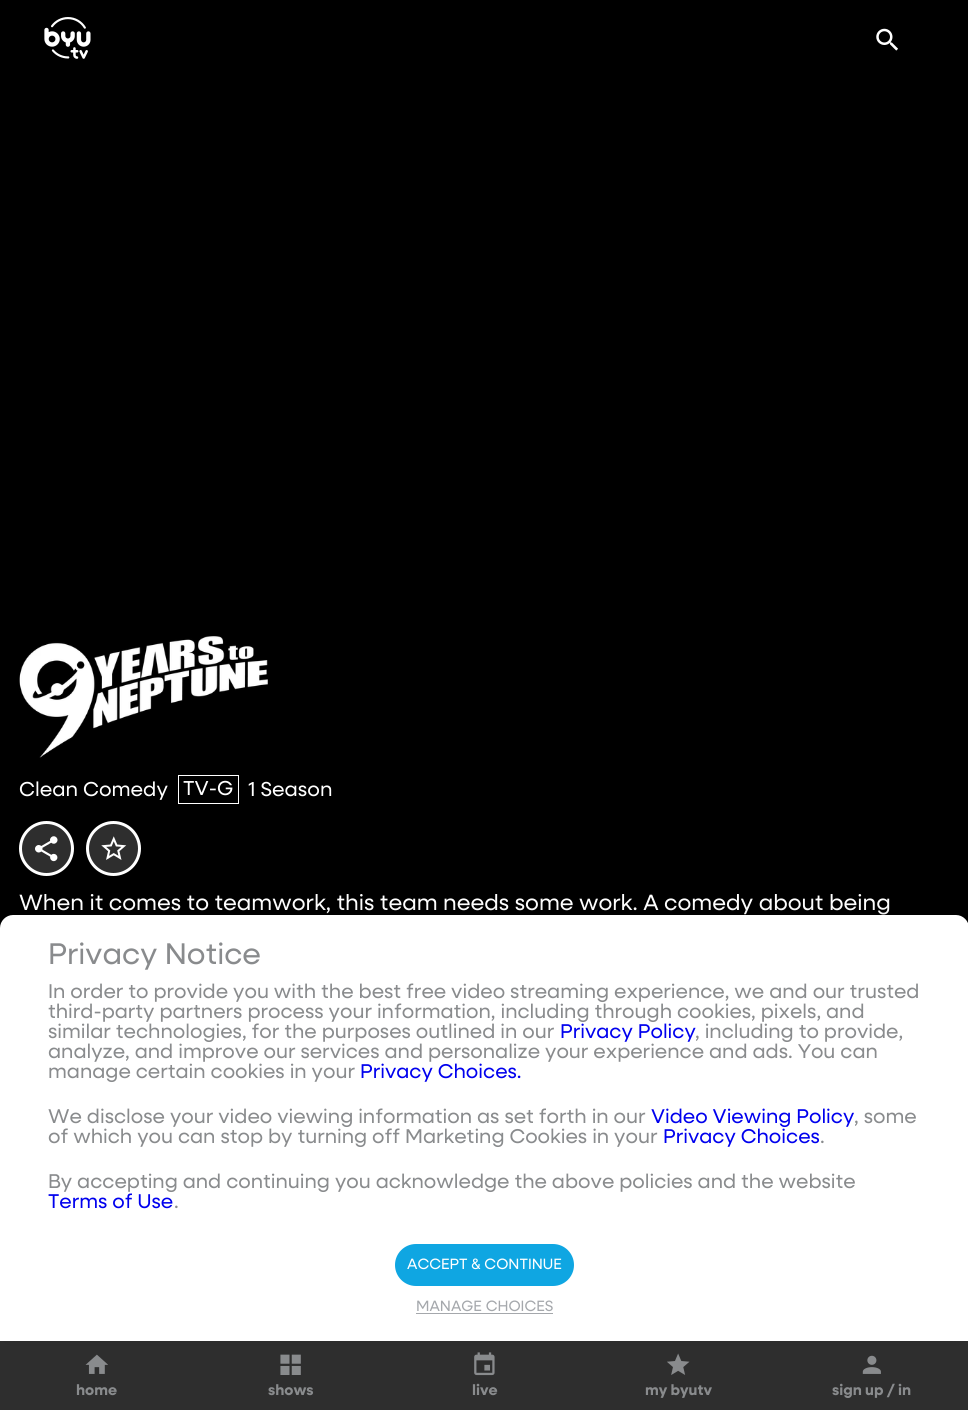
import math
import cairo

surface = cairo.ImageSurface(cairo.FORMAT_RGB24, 968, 1410)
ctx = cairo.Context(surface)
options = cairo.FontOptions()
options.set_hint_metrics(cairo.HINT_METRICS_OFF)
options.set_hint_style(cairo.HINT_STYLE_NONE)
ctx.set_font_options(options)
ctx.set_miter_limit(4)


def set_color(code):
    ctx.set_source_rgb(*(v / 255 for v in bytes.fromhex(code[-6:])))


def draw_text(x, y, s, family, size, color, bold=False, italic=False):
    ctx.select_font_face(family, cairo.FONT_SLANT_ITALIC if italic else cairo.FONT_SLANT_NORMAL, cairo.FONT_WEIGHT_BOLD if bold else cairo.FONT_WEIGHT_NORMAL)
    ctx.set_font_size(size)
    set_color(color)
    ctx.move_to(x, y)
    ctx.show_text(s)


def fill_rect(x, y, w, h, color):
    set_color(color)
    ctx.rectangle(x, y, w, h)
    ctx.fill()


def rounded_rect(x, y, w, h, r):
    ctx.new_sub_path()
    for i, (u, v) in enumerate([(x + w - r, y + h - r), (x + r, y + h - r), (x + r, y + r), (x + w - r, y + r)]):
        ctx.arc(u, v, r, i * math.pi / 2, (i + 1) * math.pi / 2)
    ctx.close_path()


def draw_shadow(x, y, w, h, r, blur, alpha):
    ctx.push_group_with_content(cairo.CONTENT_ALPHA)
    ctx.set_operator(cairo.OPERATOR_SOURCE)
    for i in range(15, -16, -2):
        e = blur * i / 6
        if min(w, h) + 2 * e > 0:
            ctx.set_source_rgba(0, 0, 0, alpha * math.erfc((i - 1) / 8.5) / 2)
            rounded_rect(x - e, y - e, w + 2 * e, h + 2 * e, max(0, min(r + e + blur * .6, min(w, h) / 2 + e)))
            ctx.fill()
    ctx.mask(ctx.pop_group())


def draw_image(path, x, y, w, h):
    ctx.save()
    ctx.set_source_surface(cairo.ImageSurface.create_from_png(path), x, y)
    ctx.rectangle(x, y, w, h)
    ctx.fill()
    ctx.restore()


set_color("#000000")
ctx.paint()
draw_image("assets/img1.png", 44, 17, 47, 42)
draw_image("assets/img2.png", 876, 28, 22, 23)
draw_image("assets/img3.png", 19, 636, 249, 122)
draw_text(19, 796, "Clean Comedy", "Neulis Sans", 20.25, "#ffffff")
ctx.rectangle(178.5, 775.5, 60, 28)
ctx.set_line_width(1)
ctx.stroke()
draw_text(183, 795, "TV-G", "Neulis Sans", 20.25, "#ffffff")
draw_text(248, 796, "1 Season", "Neulis Sans", 20.25, "#ffffff")
set_color("#2e2e2e")
ctx.new_path()
ctx.arc(46.5, 848.5, 26, 0, 2 * math.pi)
ctx.fill_preserve()
set_color("#ffffff")
ctx.set_line_width(3)
ctx.stroke()
draw_image("assets/img4.png", 35, 836, 23, 26)
set_color("#2e2e2e")
ctx.arc(113.5, 848.5, 26, 0, 2 * math.pi)
ctx.fill_preserve()
set_color("#ffffff")
ctx.stroke()
draw_image("assets/img5.png", 101, 836, 26, 24)
draw_text(19, 910, "When it comes to teamwork, this team needs some work. A comedy about being", "Neulis Sans", 22.2, "#ffffff")
fill_rect(0, 1341, 968, 69, "#2e2e2e")
draw_image("assets/img6.png", 85, 1354, 23, 20)
draw_image("assets/img7.png", 280, 1354, 21, 21)
draw_image("assets/img8.png", 474, 1352, 21, 24)
draw_image("assets/img9.png", 667, 1353, 23, 22)
draw_image("assets/img10.png", 862, 1355, 19, 19)
set_color("#000000")
draw_shadow(0, 913, 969, 426, 13, 6, 0.1)
set_color("#ffffff")
ctx.new_path()
ctx.move_to(13, 915)
ctx.line_to(956, 915)
ctx.curve_to(963, 915, 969, 921, 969, 928)
ctx.line_to(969, 1341)
ctx.line_to(0, 1341)
ctx.line_to(0, 928)
ctx.curve_to(0, 921, 6, 915, 13, 915)
ctx.close_path()
ctx.fill()
draw_text(48, 964, "Privacy Notice", "Neulis Sans", 30, "#898b8d")
draw_text(48, 998, "In order to provide you with the best free video streaming experience, we and our trusted", "Neulis Sans", 20, "#898b8d")
draw_text(48, 1018, "third-party partners process your information, including through cookies, pixels, and", "Neulis Sans", 20, "#898b8d")
draw_text(48, 1038, "similar technologies, for the purposes outlined in our", "Neulis Sans", 20, "#898b8d")
draw_text(560, 1038, "Privacy Policy", "Neulis Sans", 20, "#0000ee")
draw_text(695, 1038, ", including to provide,", "Neulis Sans", 20, "#898b8d")
draw_text(48, 1058, "analyze, and improve our services and personalize your experience and ads. You can", "Neulis Sans", 20, "#898b8d")
draw_text(48, 1078, "manage certain cookies in your", "Neulis Sans", 20, "#898b8d")
draw_text(360, 1078, "Privacy Choices.", "Neulis Sans", 20, "#0000ee")
draw_text(48, 1123, "We disclose your video viewing information as set forth in our", "Neulis Sans", 20, "#898b8d")
draw_text(651, 1123, "Video Viewing Policy", "Neulis Sans", 20, "#0000ee")
draw_text(854, 1123, ", some", "Neulis Sans", 20, "#898b8d")
draw_text(48, 1143, "of which you can stop by turning off Marketing Cookies in your", "Neulis Sans", 20, "#898b8d")
draw_text(663, 1143, "Privacy Choices", "Neulis Sans", 20, "#0000ee")
draw_text(820, 1143, ".", "Neulis Sans", 20, "#898b8d")
draw_text(48, 1188, "By accepting and continuing you acknowledge the above policies and the website", "Neulis Sans", 20, "#898b8d")
draw_text(48, 1208, "Terms of Use", "Neulis Sans", 20, "#0000ee")
draw_text(174, 1208, ".", "Neulis Sans", 20, "#898b8d")
set_color("#0fa6e2")
rounded_rect(395, 1244, 179, 42, 21)
ctx.fill()
draw_text(407, 1269, "ACCEPT & CONTINUE", "Neulis Sans", 15, "#ffffff")
draw_text(416, 1311, "MANAGE CHOICES", "Neulis Sans", 15, "#a5a8ac")
fill_rect(416, 1313, 137, 1, "#a5a8ac")
draw_text(76, 1395, "home", "Neulis Sans", 15, "#898b8d", bold=True)
draw_text(268, 1395, "shows", "Neulis Sans", 15, "#898b8d", bold=True)
draw_text(472, 1395, "live", "Neulis Sans", 15, "#898b8d", bold=True)
draw_text(645, 1395, "my byutv", "Neulis Sans", 15, "#898b8d", bold=True)
draw_text(832, 1395, "sign up / in", "Neulis Sans", 15, "#898b8d", bold=True)
surface.write_to_png("output.png")
